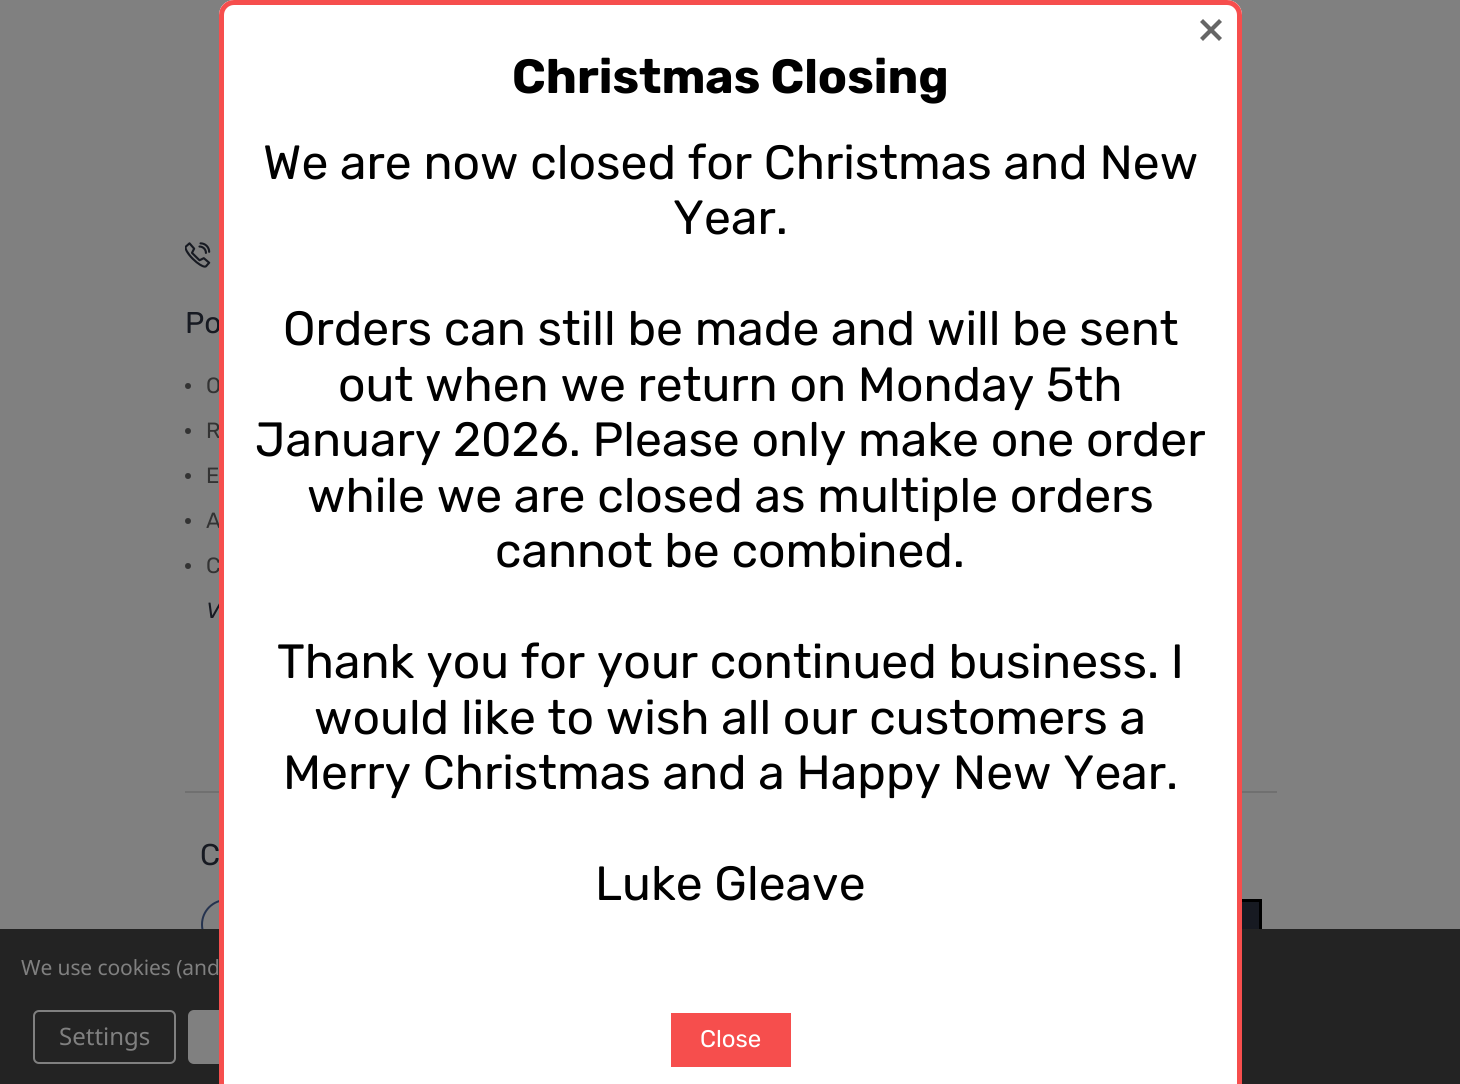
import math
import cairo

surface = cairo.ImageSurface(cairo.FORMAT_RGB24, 1460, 1084)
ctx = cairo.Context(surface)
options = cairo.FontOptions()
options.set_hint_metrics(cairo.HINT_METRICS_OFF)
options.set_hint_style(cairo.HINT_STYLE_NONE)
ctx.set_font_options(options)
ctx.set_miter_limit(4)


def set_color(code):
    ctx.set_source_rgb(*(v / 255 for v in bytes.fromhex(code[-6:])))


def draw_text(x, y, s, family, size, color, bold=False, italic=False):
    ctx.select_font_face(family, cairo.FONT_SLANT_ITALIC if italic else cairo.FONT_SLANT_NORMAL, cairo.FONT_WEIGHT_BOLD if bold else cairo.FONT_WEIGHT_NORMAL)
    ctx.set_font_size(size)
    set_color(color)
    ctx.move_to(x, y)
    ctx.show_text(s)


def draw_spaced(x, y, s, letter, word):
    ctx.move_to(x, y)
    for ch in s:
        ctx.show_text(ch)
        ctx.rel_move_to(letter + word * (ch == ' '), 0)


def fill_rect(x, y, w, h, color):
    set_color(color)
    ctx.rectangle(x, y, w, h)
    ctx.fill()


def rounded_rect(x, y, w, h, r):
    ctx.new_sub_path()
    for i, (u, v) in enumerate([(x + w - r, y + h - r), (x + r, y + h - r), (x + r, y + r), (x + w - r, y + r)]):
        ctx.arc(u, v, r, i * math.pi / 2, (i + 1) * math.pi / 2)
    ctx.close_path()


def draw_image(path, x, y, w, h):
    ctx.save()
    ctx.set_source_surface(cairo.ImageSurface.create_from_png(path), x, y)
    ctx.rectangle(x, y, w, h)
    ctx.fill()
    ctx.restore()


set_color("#808080")
ctx.paint()
draw_image("assets/img1.png", 185, 242, 26, 26)
draw_text(185, 333, "Po", "Rubik", 30, "#171a22")
set_color("#333333")
ctx.new_path()
ctx.arc(188, 386, 3, 0, 2 * math.pi)
ctx.fill()
draw_text(206, 393, "O", "Rubik", 22, "#333333")
ctx.new_path()
ctx.arc(188, 431, 3, 0, 2 * math.pi)
ctx.fill()
draw_text(206, 438, "R", "Rubik", 22, "#333333")
ctx.new_path()
ctx.arc(188, 476, 3, 0, 2 * math.pi)
ctx.fill()
draw_text(206, 483, "E", "Rubik", 22, "#333333")
ctx.new_path()
ctx.arc(188, 521, 3, 0, 2 * math.pi)
ctx.fill()
draw_text(206, 528, "A", "Rubik", 22, "#333333")
ctx.new_path()
ctx.arc(188, 566, 3, 0, 2 * math.pi)
ctx.fill()
draw_text(206, 573, "C", "Rubik", 22, "#333333")
draw_text(206, 618, "V", "Rubik", 22, "#171a22", italic=True)
fill_rect(185, 791, 1092, 2, "#707070")
draw_text(200, 865, "C", "Rubik", 30, "#171a22")
ctx.new_path()
ctx.arc(226.5, 924.5, 24.5, 0, 2 * math.pi)
set_color("#25334f")
ctx.stroke()
fill_rect(1242, 902, 17, 27, "#171a22")
ctx.rectangle(1051.5, 900.5, 209, 72)
set_color("#000000")
ctx.set_line_width(3)
ctx.stroke()
fill_rect(0, 929, 1460, 155, "#232323")
set_color("#808080")
rounded_rect(188, 1010, 148, 54, 6)
ctx.fill()
set_color("#ffffff")
ctx.new_path()
ctx.move_to(234, 0)
ctx.line_to(1227, 0)
ctx.curve_to(1235.5, 0, 1242, 6.5, 1242, 15)
ctx.line_to(1242, 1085)
ctx.line_to(219, 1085)
ctx.line_to(219, 15)
ctx.curve_to(219, 6.5, 225.5, 0, 234, 0)
ctx.close_path()
ctx.fill()
rounded_rect(221.5, 2.5, 1018, 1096, 12.5)
set_color("#f64e4d")
ctx.set_line_width(5)
ctx.stroke()
set_color("#666666")
ctx.new_path()
ctx.move_to(1219, 19)
ctx.line_to(1222, 22)
ctx.line_to(1203, 41)
ctx.line_to(1200, 38)
ctx.close_path()
ctx.fill()
ctx.new_path()
ctx.move_to(1200, 22)
ctx.line_to(1203, 19)
ctx.line_to(1222, 38)
ctx.line_to(1219, 41)
ctx.close_path()
ctx.fill()
draw_text(512, 93, "Christmas Closing", "Rubik", 48, "#000000", bold=True)
draw_text(263, 179, "We are now closed for Christmas and New", "Rubik", 48, "#000000")
draw_text(673, 234, "Year.", "Rubik", 48, "#000000")
draw_text(283, 345, "Orders can still be made and will be sent", "Rubik", 48, "#000000")
draw_text(338, 401, "out when we return on Monday 5th", "Rubik", 48, "#000000")
draw_text(255, 456, "January 2026. Please only make one order", "Rubik", 48, "#000000")
draw_text(307, 512, "while we are closed as multiple orders", "Rubik", 48, "#000000")
draw_text(495, 567, "cannot be combined.", "Rubik", 48, "#000000")
draw_text(277, 678, "Thank you for your continued business. I", "Rubik", 48, "#000000")
draw_text(314, 734, "would like to wish all our customers a", "Rubik", 48, "#000000")
draw_text(283, 789, "Merry Christmas and a Happy New Year.", "Rubik", 48, "#000000")
draw_text(595, 900, "Luke Gleave", "Rubik", 48, "#000000")
fill_rect(671, 1013, 120, 54, "#f64e4d")
draw_text(700, 1047, "Close", "Rubik", 24, "#ffffff")
ctx.select_font_face("Noto Sans")
ctx.set_font_size(21)
set_color("#808080")
draw_spaced(21, 975, "We use cookies (and", -0.1, 0)
rounded_rect(34, 1011, 141, 52, 5)
ctx.set_line_width(2)
ctx.stroke()
draw_text(59, 1045, "Settings", "Noto Sans", 24, "#808080")
surface.write_to_png("output.png")
